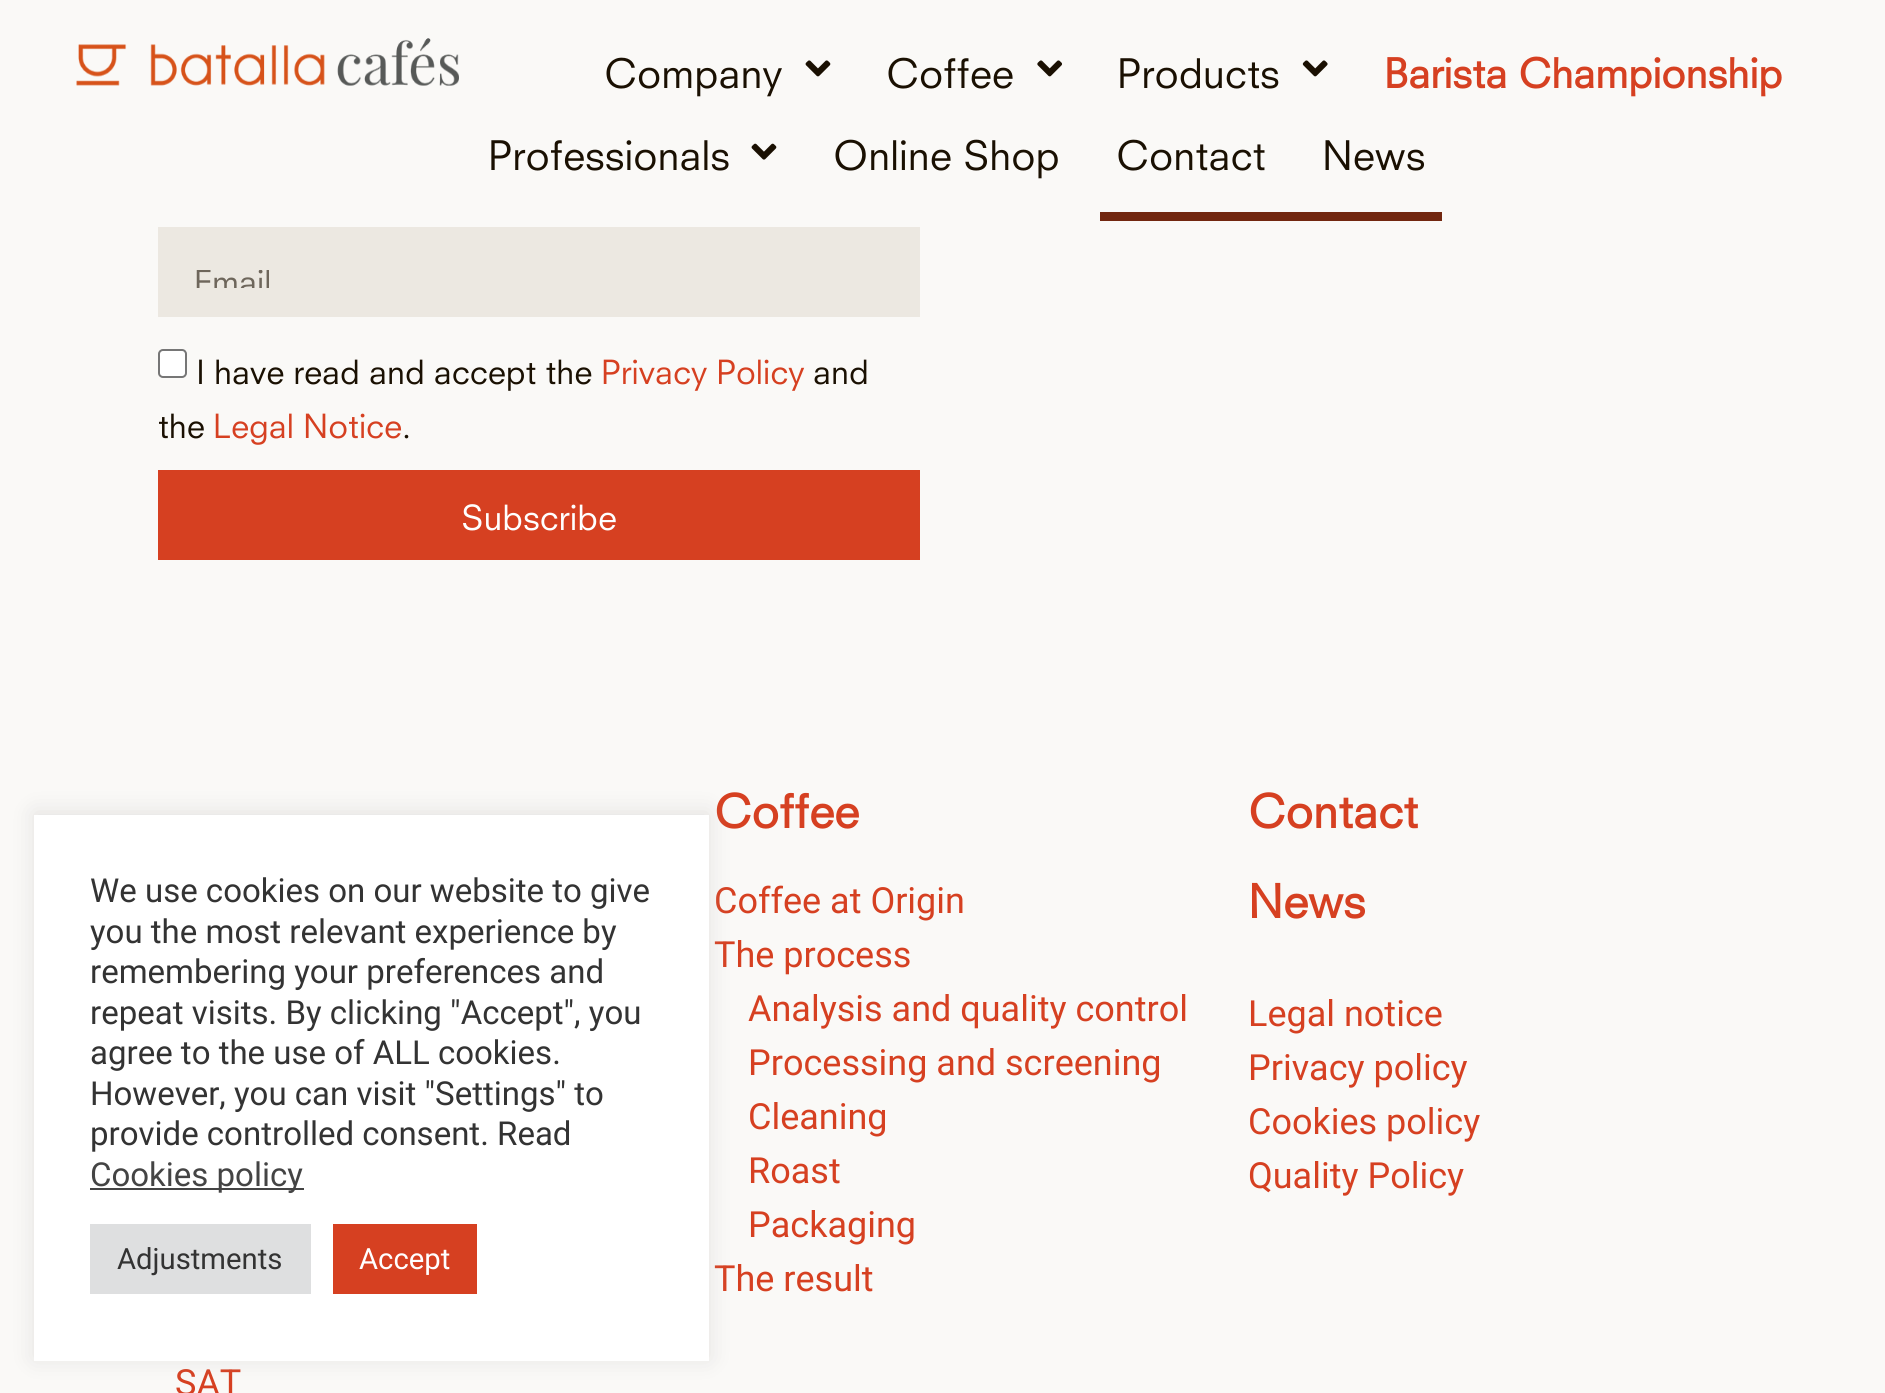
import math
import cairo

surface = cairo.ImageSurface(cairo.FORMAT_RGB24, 1885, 1393)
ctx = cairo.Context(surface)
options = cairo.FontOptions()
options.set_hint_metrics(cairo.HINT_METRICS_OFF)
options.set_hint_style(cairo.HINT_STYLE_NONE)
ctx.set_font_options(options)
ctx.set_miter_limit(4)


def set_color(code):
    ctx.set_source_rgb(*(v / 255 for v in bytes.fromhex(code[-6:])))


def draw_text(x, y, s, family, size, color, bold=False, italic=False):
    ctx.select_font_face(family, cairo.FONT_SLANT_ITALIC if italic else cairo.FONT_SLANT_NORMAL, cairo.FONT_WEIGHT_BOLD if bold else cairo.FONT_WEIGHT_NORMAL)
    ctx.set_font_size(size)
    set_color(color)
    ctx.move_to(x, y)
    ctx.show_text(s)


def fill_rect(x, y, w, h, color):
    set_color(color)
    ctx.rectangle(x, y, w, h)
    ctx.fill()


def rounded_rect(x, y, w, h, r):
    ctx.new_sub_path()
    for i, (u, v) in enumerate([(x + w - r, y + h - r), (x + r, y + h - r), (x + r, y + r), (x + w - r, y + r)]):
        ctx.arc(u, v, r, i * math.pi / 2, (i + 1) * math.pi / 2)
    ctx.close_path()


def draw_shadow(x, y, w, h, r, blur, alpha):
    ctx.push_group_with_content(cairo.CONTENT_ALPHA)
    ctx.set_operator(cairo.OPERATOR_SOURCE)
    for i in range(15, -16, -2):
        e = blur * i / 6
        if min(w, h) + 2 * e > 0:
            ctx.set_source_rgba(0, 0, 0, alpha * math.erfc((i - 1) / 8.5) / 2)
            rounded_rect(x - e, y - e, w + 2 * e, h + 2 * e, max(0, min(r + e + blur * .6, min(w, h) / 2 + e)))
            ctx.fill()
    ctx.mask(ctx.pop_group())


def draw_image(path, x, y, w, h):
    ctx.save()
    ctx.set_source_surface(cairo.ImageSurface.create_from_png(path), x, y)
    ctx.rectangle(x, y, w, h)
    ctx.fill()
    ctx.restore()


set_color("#faf9f7")
ctx.paint()
draw_image("assets/img1.png", 76, 38, 383, 48)
draw_text(604, 88, "Company", "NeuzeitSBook", 39.6, "#1a1002")
draw_image("assets/img2.png", 805, 60, 26, 17)
draw_text(886, 88, "Coffee", "NeuzeitSBook", 39.6, "#1a1002")
draw_image("assets/img3.png", 1037, 60, 25, 17)
draw_text(1117, 88, "Products", "NeuzeitSBook", 39.6, "#1a1002")
draw_image("assets/img4.png", 1302, 60, 26, 17)
draw_text(1384, 88, "Barista Championship", "NeuzeitSBook", 39.6, "#d64021", bold=True)
draw_text(488, 170, "Professionals", "NeuzeitSBook", 39.6, "#1a1002")
draw_image("assets/img5.png", 751, 143, 26, 17)
draw_text(833, 170, "Online Shop", "NeuzeitSBook", 39.6, "#1a1002")
draw_text(1116, 170, "Contact", "NeuzeitSBook", 39.6, "#1a1002")
draw_text(1322, 170, "News", "NeuzeitSBook", 39.6, "#1a1002")
fill_rect(1100, 212, 342, 9, "#722710")
fill_rect(158, 227, 762, 90, "#ece8e1")
ctx.save()
ctx.rectangle(194, 270, 690, 18)
ctx.clip()
draw_text(194, 294, "Email", "NeuzeitSBook", 32.4, "#6e665b")
ctx.restore()
set_color("#ffffff")
rounded_rect(159, 350, 27, 27, 4)
ctx.fill_preserve()
set_color("#767676")
ctx.stroke()
draw_text(196, 384, "I have read and accept the", "NeuzeitSBook", 32.4, "#1a1002")
draw_text(601, 384, "Privacy Policy", "NeuzeitSBook", 32.4, "#d64021")
draw_text(813, 384, "and", "NeuzeitSBook", 32.4, "#1a1002")
draw_text(158, 438, "the", "NeuzeitSBook", 32.4, "#1a1002")
draw_text(213, 438, "Legal Notice", "NeuzeitSBook", 32.4, "#d64021")
draw_text(402, 438, ".", "NeuzeitSBook", 32.4, "#1a1002")
fill_rect(158, 470, 762, 90, "#d64021")
draw_text(461, 530, "Subscribe", "NeuzeitSBook", 33.75, "#ffffff")
draw_text(714, 828, "Coffee", "NeuzeitSBook", 45, "#d64021", bold=True)
draw_text(714, 913, "Coffee at Origin", "Roboto", 36, "#d64021")
draw_text(714, 967, "The process", "Roboto", 36, "#d64021")
draw_text(748, 1021, "Analysis and quality control", "Roboto", 36, "#d64021")
draw_text(748, 1075, "Processing and screening", "Roboto", 36, "#d64021")
draw_text(748, 1129, "Cleaning", "Roboto", 36, "#d64021")
draw_text(748, 1183, "Roast", "Roboto", 36, "#d64021")
draw_text(748, 1237, "Packaging", "Roboto", 36, "#d64021")
draw_text(714, 1291, "The result", "Roboto", 36, "#d64021")
draw_text(1248, 828, "Contact", "NeuzeitSBook", 45, "#d64021", bold=True)
draw_text(1248, 918, "News", "NeuzeitSBook", 45, "#d64021", bold=True)
draw_text(1248, 1026, "Legal notice", "Roboto", 36, "#d64021")
draw_text(1248, 1080, "Privacy policy", "Roboto", 36, "#d64021")
draw_text(1248, 1134, "Cookies policy", "Roboto", 36, "#d64021")
draw_text(1248, 1188, "Quality Policy", "Roboto", 36, "#d64021")
draw_text(175, 1395, "SAT", "Roboto", 36, "#d64021")
set_color("#acabab")
draw_shadow(34, 812, 675, 547, 0, 11, 0.3)
fill_rect(34, 815, 675, 546, "#ffffff")
draw_text(90, 902, "We use cookies on our website to give", "Roboto", 33, "#333333")
draw_text(90, 943, "you the most relevant experience by", "Roboto", 33, "#333333")
draw_text(90, 983, "remembering your preferences and", "Roboto", 33, "#333333")
draw_text(90, 1024, "repeat visits. By clicking \"Accept\", you", "Roboto", 33, "#333333")
draw_text(90, 1064, "agree to the use of ALL cookies.", "Roboto", 33, "#333333")
draw_text(90, 1105, "However, you can visit \"Settings\" to", "Roboto", 33, "#333333")
draw_text(90, 1145, "provide controlled consent. Read", "Roboto", 33, "#333333")
fill_rect(90, 1188, 214, 2, "#444444")
draw_text(90, 1186, "Cookies policy", "Roboto", 33, "#444444")
fill_rect(90, 1224, 221, 70, "#dedfe0")
draw_text(117, 1269, "Adjustments", "Roboto", 29.25, "#333333")
fill_rect(333, 1224, 144, 70, "#d64021")
draw_text(359, 1269, "Accept", "Roboto", 29.25, "#ffffff")
surface.write_to_png("output.png")
